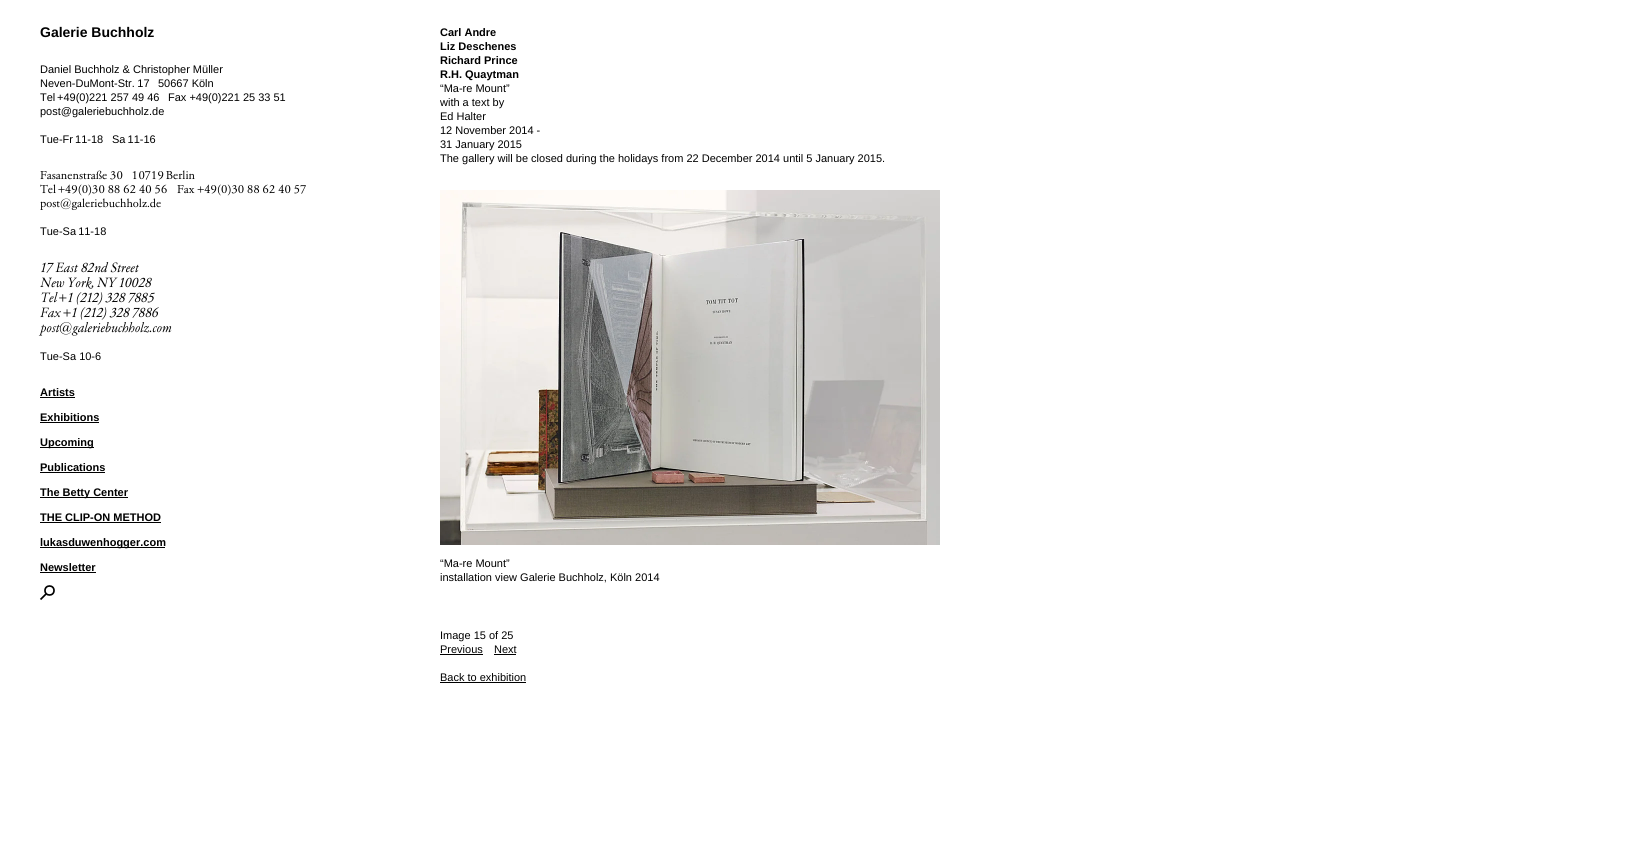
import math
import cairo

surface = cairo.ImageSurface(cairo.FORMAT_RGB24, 1646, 854)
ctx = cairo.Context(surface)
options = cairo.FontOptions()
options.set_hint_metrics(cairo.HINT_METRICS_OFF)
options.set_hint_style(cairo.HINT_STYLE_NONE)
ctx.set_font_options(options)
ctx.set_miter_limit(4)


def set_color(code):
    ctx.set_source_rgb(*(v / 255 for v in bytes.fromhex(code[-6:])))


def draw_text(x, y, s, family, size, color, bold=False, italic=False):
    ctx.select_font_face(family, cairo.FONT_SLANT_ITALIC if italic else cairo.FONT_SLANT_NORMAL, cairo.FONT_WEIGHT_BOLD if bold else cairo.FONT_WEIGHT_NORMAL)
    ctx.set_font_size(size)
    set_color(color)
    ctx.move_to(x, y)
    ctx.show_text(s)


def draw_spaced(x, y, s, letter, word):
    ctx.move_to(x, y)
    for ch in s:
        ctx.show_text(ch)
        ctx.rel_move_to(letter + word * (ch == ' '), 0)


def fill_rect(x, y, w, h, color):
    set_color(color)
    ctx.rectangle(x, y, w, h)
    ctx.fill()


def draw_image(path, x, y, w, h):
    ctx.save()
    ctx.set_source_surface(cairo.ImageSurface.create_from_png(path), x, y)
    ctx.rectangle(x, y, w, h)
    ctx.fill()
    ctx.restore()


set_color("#ffffff")
ctx.paint()
draw_text(40, 37, "Galerie Buchholz", "Liberation Sans", 14, "#000000", bold=True)
draw_text(40, 73, "Daniel Buchholz & Christopher Müller", "Liberation Sans", 11, "#000000")
draw_spaced(40, 87, "Neven-DuMont-Str. 17", 0, -0.5)
draw_text(158, 87, "50667 Köln", "Liberation Sans", 11, "#000000")
draw_text(40, 101, "Tel", "Liberation Sans", 11, "#000000")
draw_text(57, 101, "+49(0)221 257 49 46", "Liberation Sans", 11, "#000000")
draw_text(168, 101, "Fax +49(0)221 25 33 51", "Liberation Sans", 11, "#000000")
draw_text(40, 115, "post@galeriebuchholz.de", "Liberation Sans", 11, "#000000")
draw_spaced(40, 143, "Tue-Fr 11-18", 0, -1)
draw_spaced(112, 143, "Sa 11-16", 0, -1)
draw_text(40, 179, "Fasanenstraße 30", "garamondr", 12, "#000000")
draw_spaced(132, 179, "10719 Berlin", 0, -1)
draw_text(40, 193, "Tel", "garamondr", 12, "#000000")
draw_text(58, 193, "+49(0)30 88 62 40 56", "garamondr", 12, "#000000")
draw_text(177, 193, "Fax +49(0)30 88 62 40 57", "garamondr", 12, "#000000")
draw_text(40, 207, "post@galeriebuchholz.de", "garamondr", 12, "#000000")
ctx.select_font_face("Liberation Sans")
ctx.set_font_size(11)
draw_spaced(40, 235, "Tue-Sa 11-18", 0, -1)
draw_text(40, 272, "17 East 82nd Street", "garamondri", 14, "#000000")
draw_spaced(40, 287, "New York, NY 10028", 0, -0.5)
draw_spaced(40, 302, "Tel +", 0, -1)
draw_spaced(67, 302, "1 (212) 328 7885", 0, -0.5)
draw_spaced(40, 317, "Fax +1 (212) 328 7886", 0, -0.5)
draw_text(40, 332, "post@galeriebuchholz.com", "garamondri", 14, "#000000")
draw_text(40, 360, "Tue-Sa 10-6", "Liberation Sans", 11, "#000000")
draw_text(40, 396, "Artists", "Liberation Sans", 11, "#000000", bold=True)
fill_rect(40, 397, 35, 1, "#000000")
draw_text(40, 421, "Exhibitions", "Liberation Sans", 11, "#000000", bold=True)
fill_rect(40, 422, 59, 1, "#000000")
fill_rect(40, 447, 54, 1, "#000000")
draw_text(40, 446, "Upcoming", "Liberation Sans", 11, "#000000", bold=True)
draw_text(40, 471, "Publications", "Liberation Sans", 11, "#000000", bold=True)
fill_rect(40, 472, 65, 1, "#000000")
fill_rect(40, 497, 88, 1, "#000000")
draw_text(40, 496, "The Betty Center", "Liberation Sans", 11, "#000000", bold=True)
draw_text(40, 521, "THE CLIP-ON METHOD", "Liberation Sans", 11, "#000000", bold=True)
fill_rect(40, 522, 121, 1, "#000000")
fill_rect(40, 547, 125, 1, "#000000")
draw_text(40, 546, "lukasduwenhogger.com", "Liberation Sans", 11, "#000000", bold=True)
draw_text(40, 571, "Newsletter", "Liberation Sans", 11, "#000000", bold=True)
fill_rect(40, 572, 56, 1, "#000000")
ctx.new_path()
ctx.arc(49.5, 590.5, 4.5, 0, 2 * math.pi)
ctx.set_line_width(1.7)
ctx.stroke()
ctx.new_path()
ctx.move_to(46, 594)
ctx.line_to(40.5, 599.5)
ctx.stroke()
draw_text(440, 36, "Carl Andre", "Liberation Sans", 11, "#000000", bold=True)
draw_text(440, 50, "Liz Deschenes", "Liberation Sans", 11, "#000000", bold=True)
draw_text(440, 64, "Richard Prince", "Liberation Sans", 11, "#000000", bold=True)
draw_text(440, 78, "R.H. Quaytman", "Liberation Sans", 11, "#000000", bold=True)
draw_text(440, 92, "“Ma-re Mount”", "Liberation Sans", 11, "#000000")
draw_text(440, 106, "with a text by", "Liberation Sans", 11, "#000000")
draw_text(440, 120, "Ed Halter", "Liberation Sans", 11, "#000000")
draw_text(440, 134, "12 November 2014 -", "Liberation Sans", 11, "#000000")
draw_text(440, 148, "31 January 2015", "Liberation Sans", 11, "#000000")
draw_text(440, 162, "The gallery will be closed during the holidays from 22 December 2014 until 5 January 2015.", "Liberation Sans", 11, "#000000")
draw_image("assets/img1.png", 440, 190, 500, 355)
draw_text(440, 567, "“Ma-re Mount”", "Liberation Sans", 11, "#000000")
draw_text(440, 581, "installation view Galerie Buchholz, Köln 2014", "Liberation Sans", 11, "#000000")
draw_text(440, 639, "Image 15 of 25", "Liberation Sans", 11, "#000000")
draw_text(440, 653, "Previous", "Liberation Sans", 11, "#000000")
fill_rect(440, 654, 43, 1, "#000000")
draw_text(494, 653, "Next", "Liberation Sans", 11, "#000000")
fill_rect(494, 654, 22, 1, "#000000")
draw_text(440, 681, "Back to exhibition", "Liberation Sans", 11, "#000000")
fill_rect(440, 682, 86, 1, "#000000")
surface.write_to_png("output.png")
